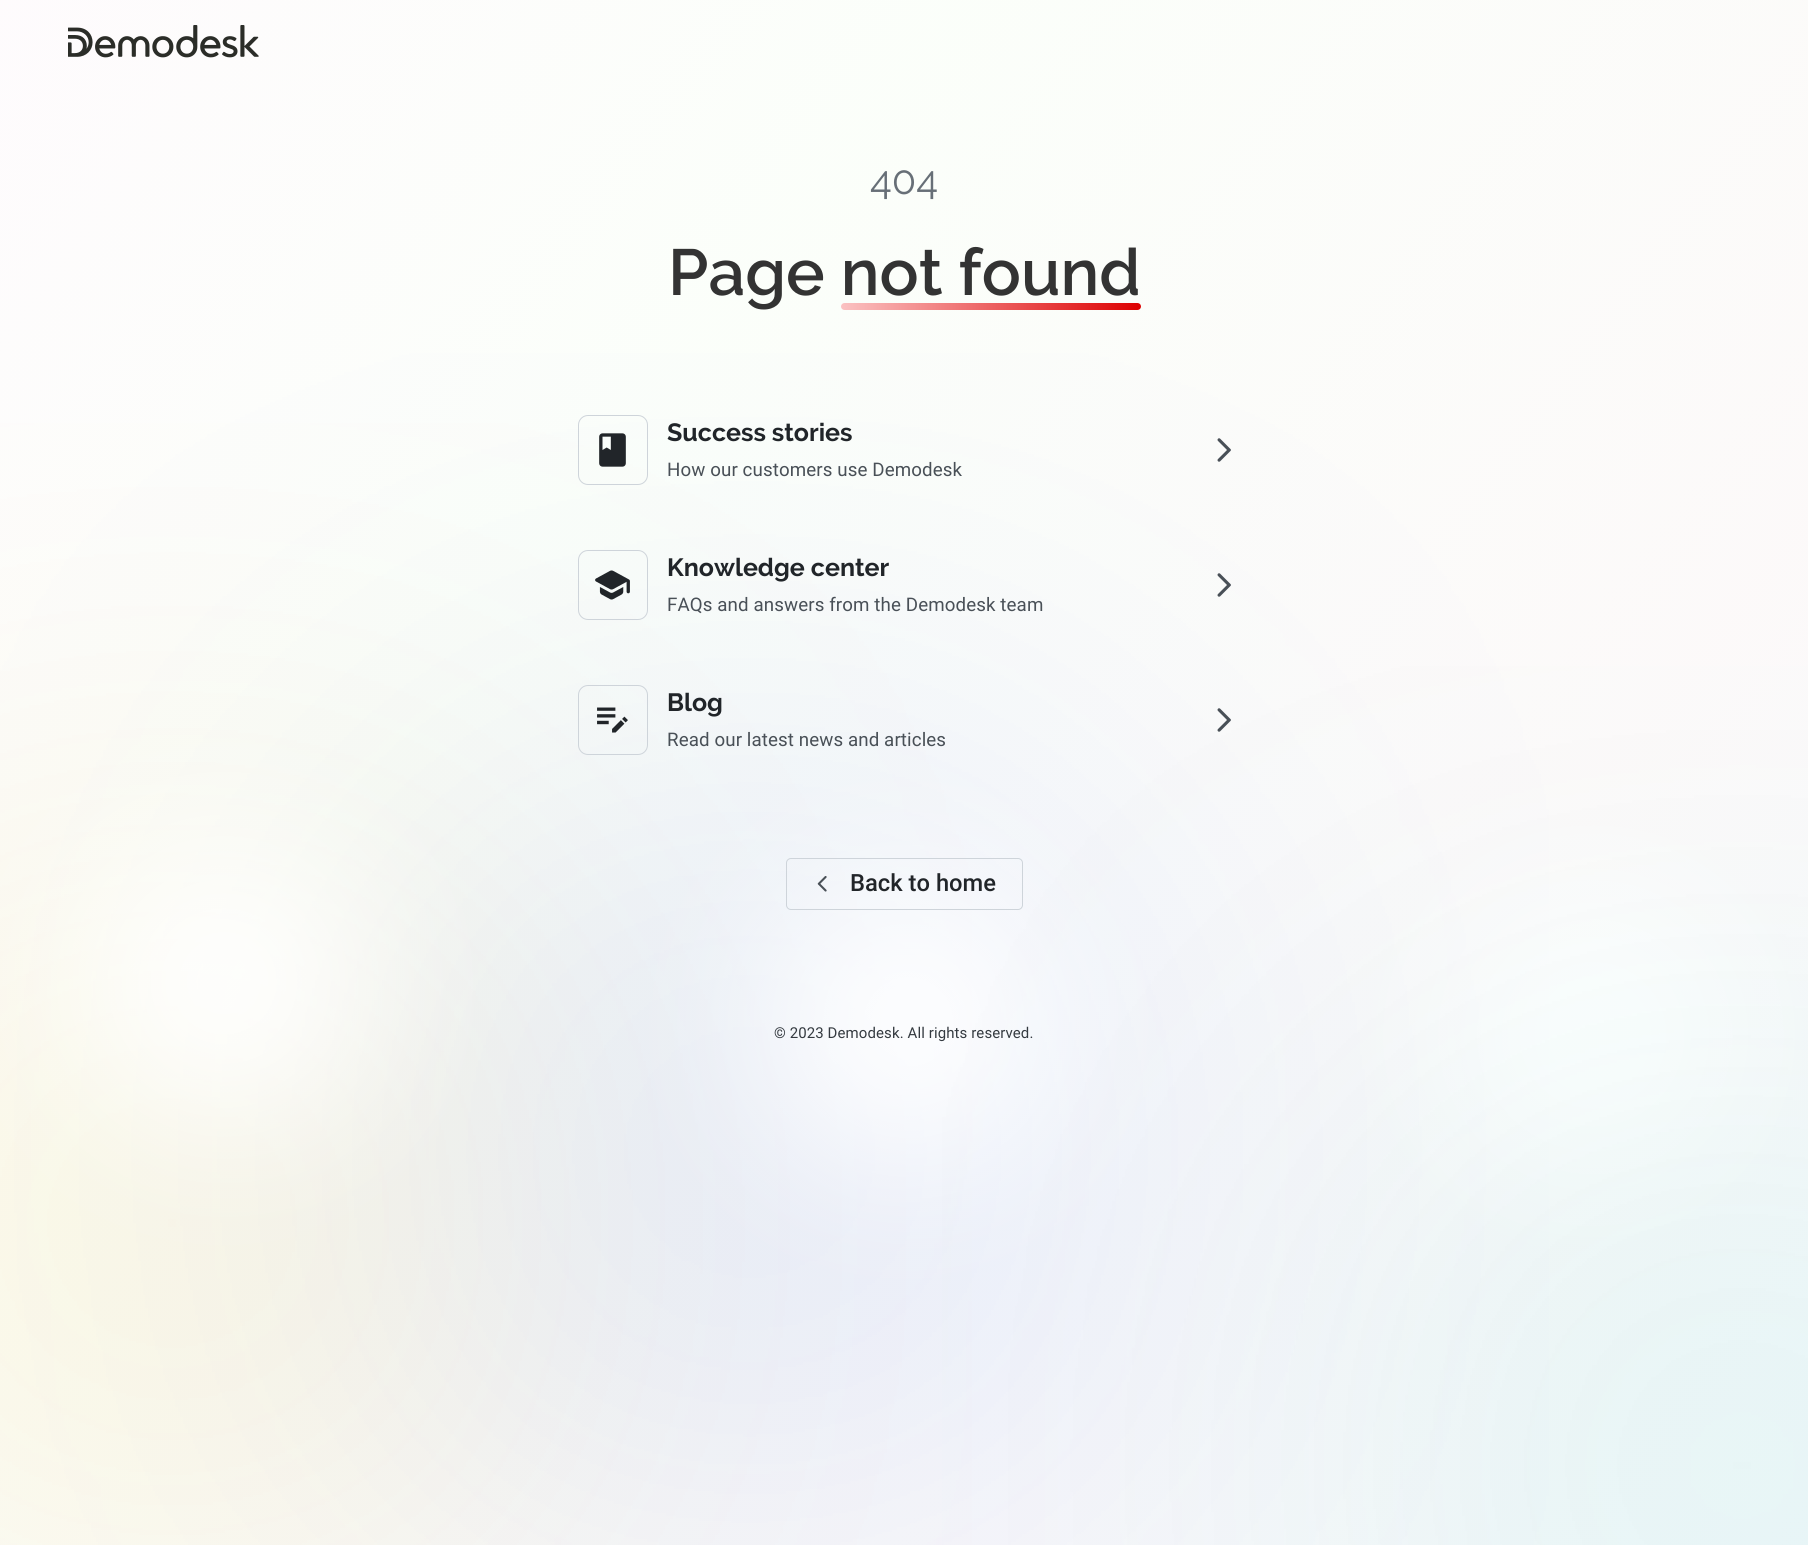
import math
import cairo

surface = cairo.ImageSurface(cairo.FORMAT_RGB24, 1808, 1545)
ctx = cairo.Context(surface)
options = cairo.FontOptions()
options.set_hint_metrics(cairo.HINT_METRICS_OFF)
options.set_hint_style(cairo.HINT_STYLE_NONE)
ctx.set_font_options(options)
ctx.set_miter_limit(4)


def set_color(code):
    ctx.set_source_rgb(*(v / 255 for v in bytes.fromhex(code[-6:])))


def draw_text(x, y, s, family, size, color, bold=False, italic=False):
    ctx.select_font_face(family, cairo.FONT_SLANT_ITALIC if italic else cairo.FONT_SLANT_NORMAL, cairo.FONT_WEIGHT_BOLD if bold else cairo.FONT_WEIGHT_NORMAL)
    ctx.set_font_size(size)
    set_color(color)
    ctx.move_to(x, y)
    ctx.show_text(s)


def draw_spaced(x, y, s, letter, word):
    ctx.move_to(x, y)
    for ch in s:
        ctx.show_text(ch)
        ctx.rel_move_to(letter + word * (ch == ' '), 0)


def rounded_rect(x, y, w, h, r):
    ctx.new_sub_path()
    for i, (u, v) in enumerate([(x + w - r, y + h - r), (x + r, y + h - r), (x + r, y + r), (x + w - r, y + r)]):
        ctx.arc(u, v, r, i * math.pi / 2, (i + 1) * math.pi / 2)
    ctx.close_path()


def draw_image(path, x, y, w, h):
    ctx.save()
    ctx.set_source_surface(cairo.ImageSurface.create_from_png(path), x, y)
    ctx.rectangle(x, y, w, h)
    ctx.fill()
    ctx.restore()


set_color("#ffffff")
ctx.paint()
draw_image("assets/img1.png", 0, 0, 1808, 1545)
draw_image("assets/img2.png", 68, 25, 191, 33)
draw_text(870, 194, "404", "Raleway", 40, "#676f77")
draw_text(668, 295, "Page not found", "Raleway SemiBold", 65, "#333333")
gradient = cairo.LinearGradient(841, 306, 1141, 306)
gradient.add_color_stop_rgba(0, 0.984, 0.761, 0.761, 1)
gradient.add_color_stop_rgba(1, 0.867, 0, 0, 1)
ctx.set_source(gradient)
rounded_rect(841, 303, 300, 7, 3.5)
ctx.fill()
draw_image("assets/img3.png", 1217, 438, 14, 24)
rounded_rect(578.5, 415.5, 69, 69, 9.5)
set_color("#ced4da")
ctx.set_line_width(1)
ctx.stroke()
draw_image("assets/img4.png", 599, 433, 27, 34)
draw_text(667, 441, "Success stories", "Raleway", 25, "#212529", bold=True)
ctx.select_font_face("Roboto")
ctx.set_font_size(18.75)
set_color("#495057")
draw_spaced(667, 476, "How our customers use Demodesk", 0.1, 0)
draw_image("assets/img5.png", 1217, 573, 14, 24)
rounded_rect(578.5, 550.5, 69, 69, 9.5)
set_color("#ced4da")
ctx.stroke()
draw_image("assets/img6.png", 595, 570, 35, 30)
draw_text(667, 576, "Knowledge center", "Raleway", 25, "#212529", bold=True)
ctx.select_font_face("Roboto")
ctx.set_font_size(18.75)
set_color("#495057")
draw_spaced(667, 611, "FAQs and answers from the Demodesk team", 0.1, 0)
draw_image("assets/img7.png", 1217, 708, 14, 24)
rounded_rect(578.5, 685.5, 69, 69, 9.5)
set_color("#ced4da")
ctx.stroke()
draw_image("assets/img8.png", 597, 707, 31, 26)
draw_text(667, 711, "Blog", "Raleway", 25, "#212529", bold=True)
ctx.select_font_face("Roboto")
ctx.set_font_size(18.75)
set_color("#495057")
draw_spaced(667, 746, "Read our latest news and articles", 0.1, 0)
rounded_rect(786.5, 858.5, 236, 51, 4.5)
set_color("#ced4da")
ctx.stroke()
draw_image("assets/img9.png", 817, 876, 10, 16)
draw_text(850, 891, "Back to home", "Roboto Medium", 23.75, "#212529")
ctx.select_font_face("Roboto")
ctx.set_font_size(15)
set_color("#343a40")
draw_spaced(774, 1038, "© 2023 Demodesk. All rights reserved.", 0.1, 0)
surface.write_to_png("output.png")
